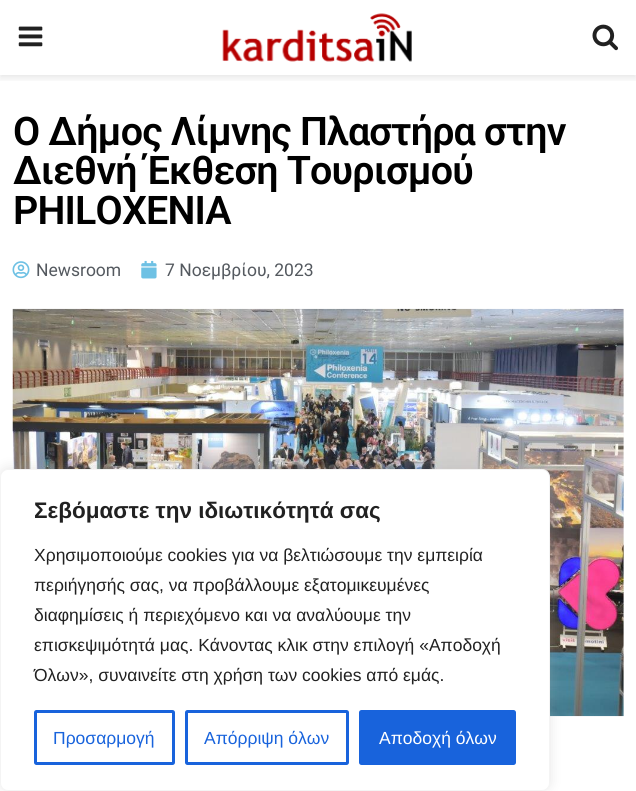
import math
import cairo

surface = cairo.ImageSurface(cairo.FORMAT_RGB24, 636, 791)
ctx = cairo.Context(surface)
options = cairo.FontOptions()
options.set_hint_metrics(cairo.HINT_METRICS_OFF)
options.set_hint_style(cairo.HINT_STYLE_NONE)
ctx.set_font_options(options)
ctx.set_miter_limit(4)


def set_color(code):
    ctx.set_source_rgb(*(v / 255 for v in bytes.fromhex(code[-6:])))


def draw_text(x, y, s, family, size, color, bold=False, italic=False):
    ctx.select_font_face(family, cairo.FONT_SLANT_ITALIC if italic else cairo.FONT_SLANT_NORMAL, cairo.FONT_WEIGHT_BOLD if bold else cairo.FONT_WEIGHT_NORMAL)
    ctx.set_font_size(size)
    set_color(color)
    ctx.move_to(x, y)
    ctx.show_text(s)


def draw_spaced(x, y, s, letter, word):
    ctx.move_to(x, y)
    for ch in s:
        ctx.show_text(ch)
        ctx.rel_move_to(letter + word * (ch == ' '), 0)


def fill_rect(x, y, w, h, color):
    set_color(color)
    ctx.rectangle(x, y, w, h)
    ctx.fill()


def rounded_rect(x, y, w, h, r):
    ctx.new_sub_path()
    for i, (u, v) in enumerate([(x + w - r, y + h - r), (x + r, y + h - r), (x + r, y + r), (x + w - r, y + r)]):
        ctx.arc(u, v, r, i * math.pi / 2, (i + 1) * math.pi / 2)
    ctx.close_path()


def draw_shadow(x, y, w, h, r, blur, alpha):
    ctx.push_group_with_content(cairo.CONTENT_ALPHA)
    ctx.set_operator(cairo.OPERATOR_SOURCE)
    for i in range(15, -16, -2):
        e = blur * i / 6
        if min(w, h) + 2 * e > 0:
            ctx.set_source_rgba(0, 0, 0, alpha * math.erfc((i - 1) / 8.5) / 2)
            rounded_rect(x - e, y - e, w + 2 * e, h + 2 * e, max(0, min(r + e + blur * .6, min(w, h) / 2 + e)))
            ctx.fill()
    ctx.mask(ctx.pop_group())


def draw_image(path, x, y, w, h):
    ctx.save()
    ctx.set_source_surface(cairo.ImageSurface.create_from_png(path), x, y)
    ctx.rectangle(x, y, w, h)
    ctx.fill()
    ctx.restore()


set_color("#ffffff")
ctx.paint()
ctx.save()
ctx.rectangle(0, 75, 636, 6)
ctx.clip()
set_color("#000000")
draw_shadow(0, 3, 636, 75, 0, 4, 0.1)
ctx.restore()
draw_image("assets/img1.png", 18, 26, 25, 21)
draw_image("assets/img2.png", 222, 13, 190, 49)
draw_image("assets/img3.png", 592, 24, 26, 27)
ctx.select_font_face("Roboto SemiBold")
ctx.set_font_size(39.4)
set_color("#000000")
draw_spaced(13, 145, "Ο Δήμος Λίμνης Πλαστήρα στην", -0.8, 0)
draw_spaced(13, 184, "Διεθνή Έκθεση Τουρισμού", -0.8, 0)
draw_spaced(13, 224, "PHILOXENIA", -0.8, 0)
draw_image("assets/img4.png", 12, 261, 18, 18)
draw_text(36, 276, "Newsroom", "Roboto", 17.5, "#54595f")
draw_image("assets/img5.png", 141, 260, 16, 19)
draw_text(165, 276, "7 Νοεμβρίου, 2023", "Roboto", 17.5, "#54595f")
fill_rect(623, 309, 1, 407, "#f7f7f7")
draw_image("assets/img6.png", 12, 308, 612, 409)
set_color("#acabab")
draw_shadow(0, 468, 550, 322, 8, 6, 0.3)
set_color("#ffffff")
rounded_rect(0.5, 469.5, 549, 321, 7.5)
ctx.fill_preserve()
set_color("#f4f4f4")
ctx.set_line_width(1)
ctx.stroke()
draw_text(34, 518, "Σεβόμαστε την ιδιωτικότητά σας", "Liberation Sans", 22.5, "#212121", bold=True)
draw_text(34, 561, "Χρησιμοποιούμε cookies για να βελτιώσουμε την εμπειρία", "Liberation Sans", 17.5, "#212121")
draw_text(34, 591, "περιήγησής σας, να προβάλλουμε εξατομικευμένες", "Liberation Sans", 17.5, "#212121")
draw_text(34, 621, "διαφημίσεις ή περιεχόμενο και να αναλύουμε την", "Liberation Sans", 17.5, "#212121")
draw_text(34, 651, "επισκεψιμότητά μας. Κάνοντας κλικ στην επιλογή «Αποδοχή", "Liberation Sans", 17.5, "#212121")
draw_text(34, 681, "Όλων», συναινείτε στη χρήση των cookies από εμάς.", "Liberation Sans", 17.5, "#212121")
rounded_rect(35.5, 711.5, 138, 52, 1)
set_color("#1863dc")
ctx.set_line_width(3)
ctx.stroke()
draw_text(53, 744, "Προσαρμογή", "Liberation Sans", 17.5, "#1863dc")
rounded_rect(186.5, 711.5, 161, 52, 1)
ctx.stroke()
draw_text(204, 744, "Απόρριψη όλων", "Liberation Sans", 17.5, "#1863dc")
rounded_rect(360.5, 711.5, 154, 52, 1)
ctx.fill_preserve()
ctx.stroke()
draw_text(379, 744, "Αποδοχή όλων", "Liberation Sans", 17.5, "#ffffff")
surface.write_to_png("output.png")
